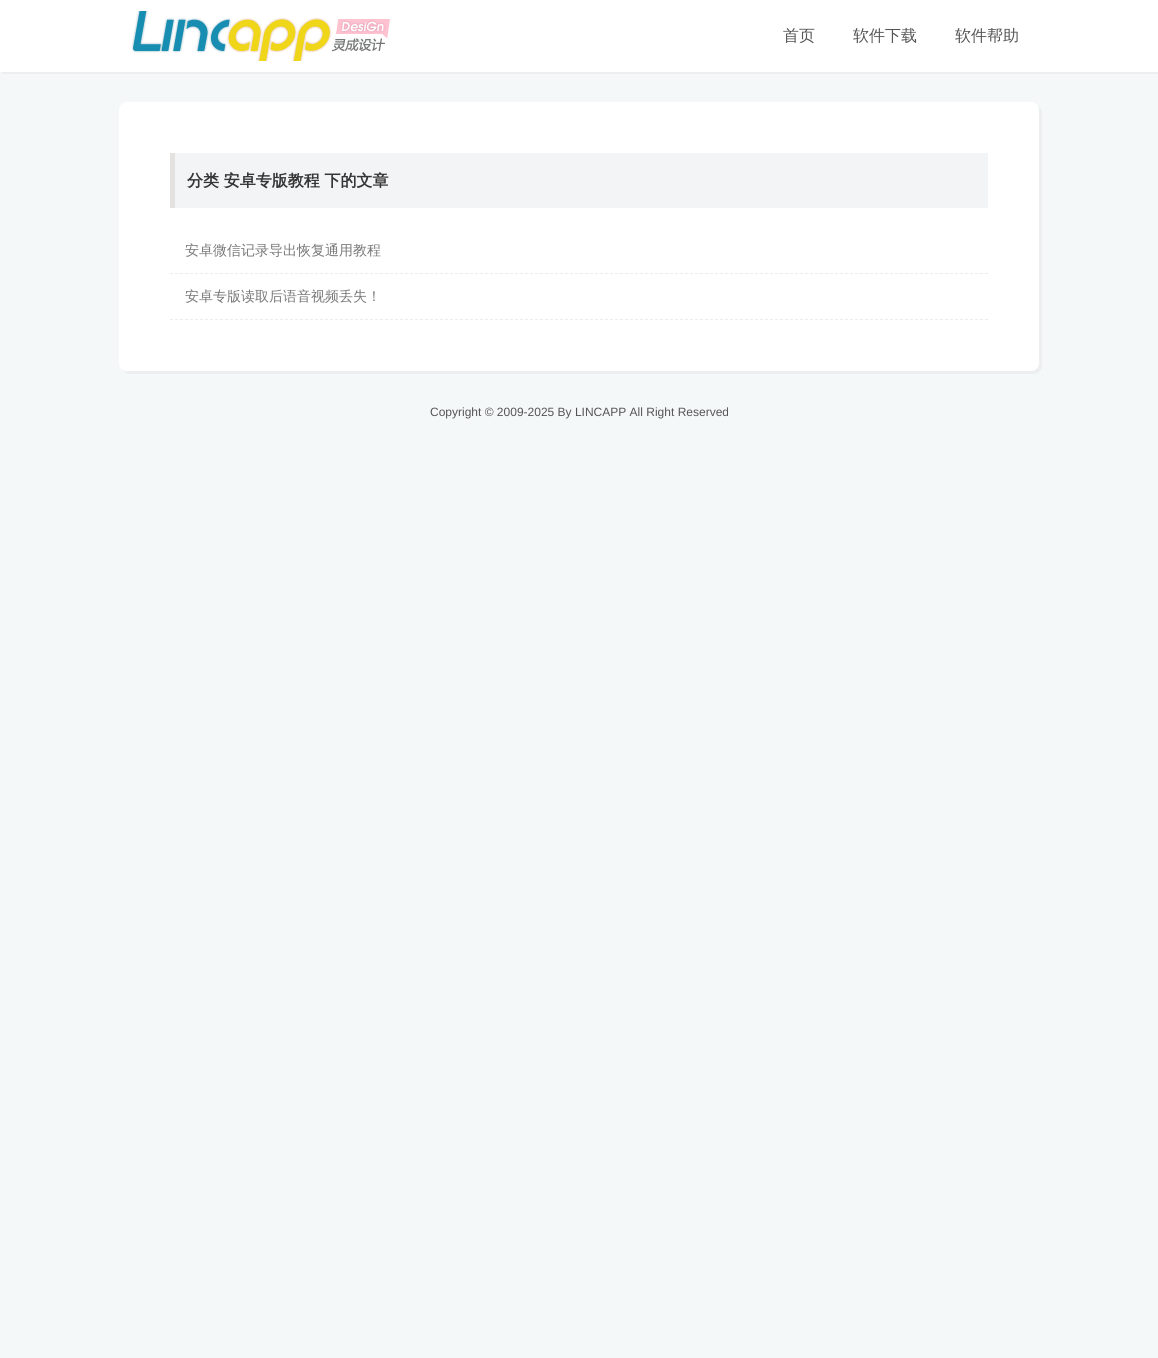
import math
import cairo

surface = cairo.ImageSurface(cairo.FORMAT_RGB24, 1158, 1358)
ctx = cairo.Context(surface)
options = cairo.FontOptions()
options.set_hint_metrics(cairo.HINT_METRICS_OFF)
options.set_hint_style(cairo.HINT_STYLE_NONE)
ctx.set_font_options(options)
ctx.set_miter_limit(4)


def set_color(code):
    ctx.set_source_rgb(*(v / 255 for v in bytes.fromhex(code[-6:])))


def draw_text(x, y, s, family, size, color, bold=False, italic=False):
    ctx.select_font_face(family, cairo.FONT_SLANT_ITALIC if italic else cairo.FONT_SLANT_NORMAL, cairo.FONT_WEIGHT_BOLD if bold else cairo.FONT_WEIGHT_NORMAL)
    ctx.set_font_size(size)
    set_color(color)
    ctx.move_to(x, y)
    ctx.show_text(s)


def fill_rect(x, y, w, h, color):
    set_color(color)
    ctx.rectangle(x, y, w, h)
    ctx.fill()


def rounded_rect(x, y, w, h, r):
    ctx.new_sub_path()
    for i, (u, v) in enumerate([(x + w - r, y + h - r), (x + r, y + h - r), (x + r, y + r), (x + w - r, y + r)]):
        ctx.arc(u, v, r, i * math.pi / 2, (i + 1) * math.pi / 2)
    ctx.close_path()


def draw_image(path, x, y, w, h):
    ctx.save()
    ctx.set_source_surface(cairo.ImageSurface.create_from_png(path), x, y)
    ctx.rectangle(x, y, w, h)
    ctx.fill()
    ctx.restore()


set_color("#f4f8f9")
ctx.paint()
set_color("#eceeef")
ctx.new_path()
ctx.move_to(2, 72)
ctx.line_to(2, 74)
ctx.line_to(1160, 74)
ctx.line_to(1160, 2)
ctx.line_to(1158, 2)
ctx.line_to(1158, 72)
ctx.close_path()
ctx.fill()
fill_rect(0, 0, 1158, 72, "#ffffff")
draw_image("assets/img1.png", 132, 11, 258, 50)
draw_text(783, 41, "首页", "WenQuanYi Zen Hei Medium", 16, "#555555")
draw_text(853, 41, "软件下载", "WenQuanYi Zen Hei Medium", 16, "#555555")
draw_text(955, 41, "软件帮助", "WenQuanYi Zen Hei Medium", 16, "#555555")
set_color("#eceeef")
ctx.new_path()
ctx.move_to(123, 370)
ctx.curve_to(124, 372, 127, 374, 130, 374)
ctx.line_to(1034, 374)
ctx.curve_to(1038, 374, 1042, 370, 1042, 366)
ctx.line_to(1042, 113)
ctx.curve_to(1042, 110, 1040, 107, 1038, 106)
ctx.curve_to(1039, 107, 1039, 109, 1039, 110)
ctx.line_to(1039, 363)
ctx.curve_to(1039, 367, 1035, 371, 1031, 371)
ctx.line_to(127, 371)
ctx.curve_to(126, 371, 124, 371, 123, 370)
ctx.close_path()
ctx.fill()
set_color("#ffffff")
rounded_rect(119, 102, 920, 269, 8)
ctx.fill()
fill_rect(175, 153, 813, 55, "#f3f4f6")
fill_rect(170, 153, 5, 55, "#e4e1e1")
draw_text(187, 186, "分类 安卓专版教程 下的文章", "WenQuanYi Zen Hei", 16, "#353535", bold=True)
ctx.new_path()
ctx.move_to(170, 273.5)
ctx.line_to(988, 273.5)
set_color("#ececec")
ctx.set_line_width(1)
ctx.set_dash([3, 2])
ctx.stroke()
draw_text(185, 255, "安卓微信记录导出恢复通用教程", "WenQuanYi Zen Hei Medium", 14, "#797878")
ctx.new_path()
ctx.move_to(170, 319.5)
ctx.line_to(988, 319.5)
set_color("#ececec")
ctx.stroke()
draw_text(185, 301, "安卓专版读取后语音视频丢失！", "WenQuanYi Zen Hei Medium", 14, "#797878")
draw_text(430, 416, "Copyright © 2009-2025 By LINCAPP All Right Reserved", "Liberation Sans", 12, "#555555")
surface.write_to_png("output.png")
